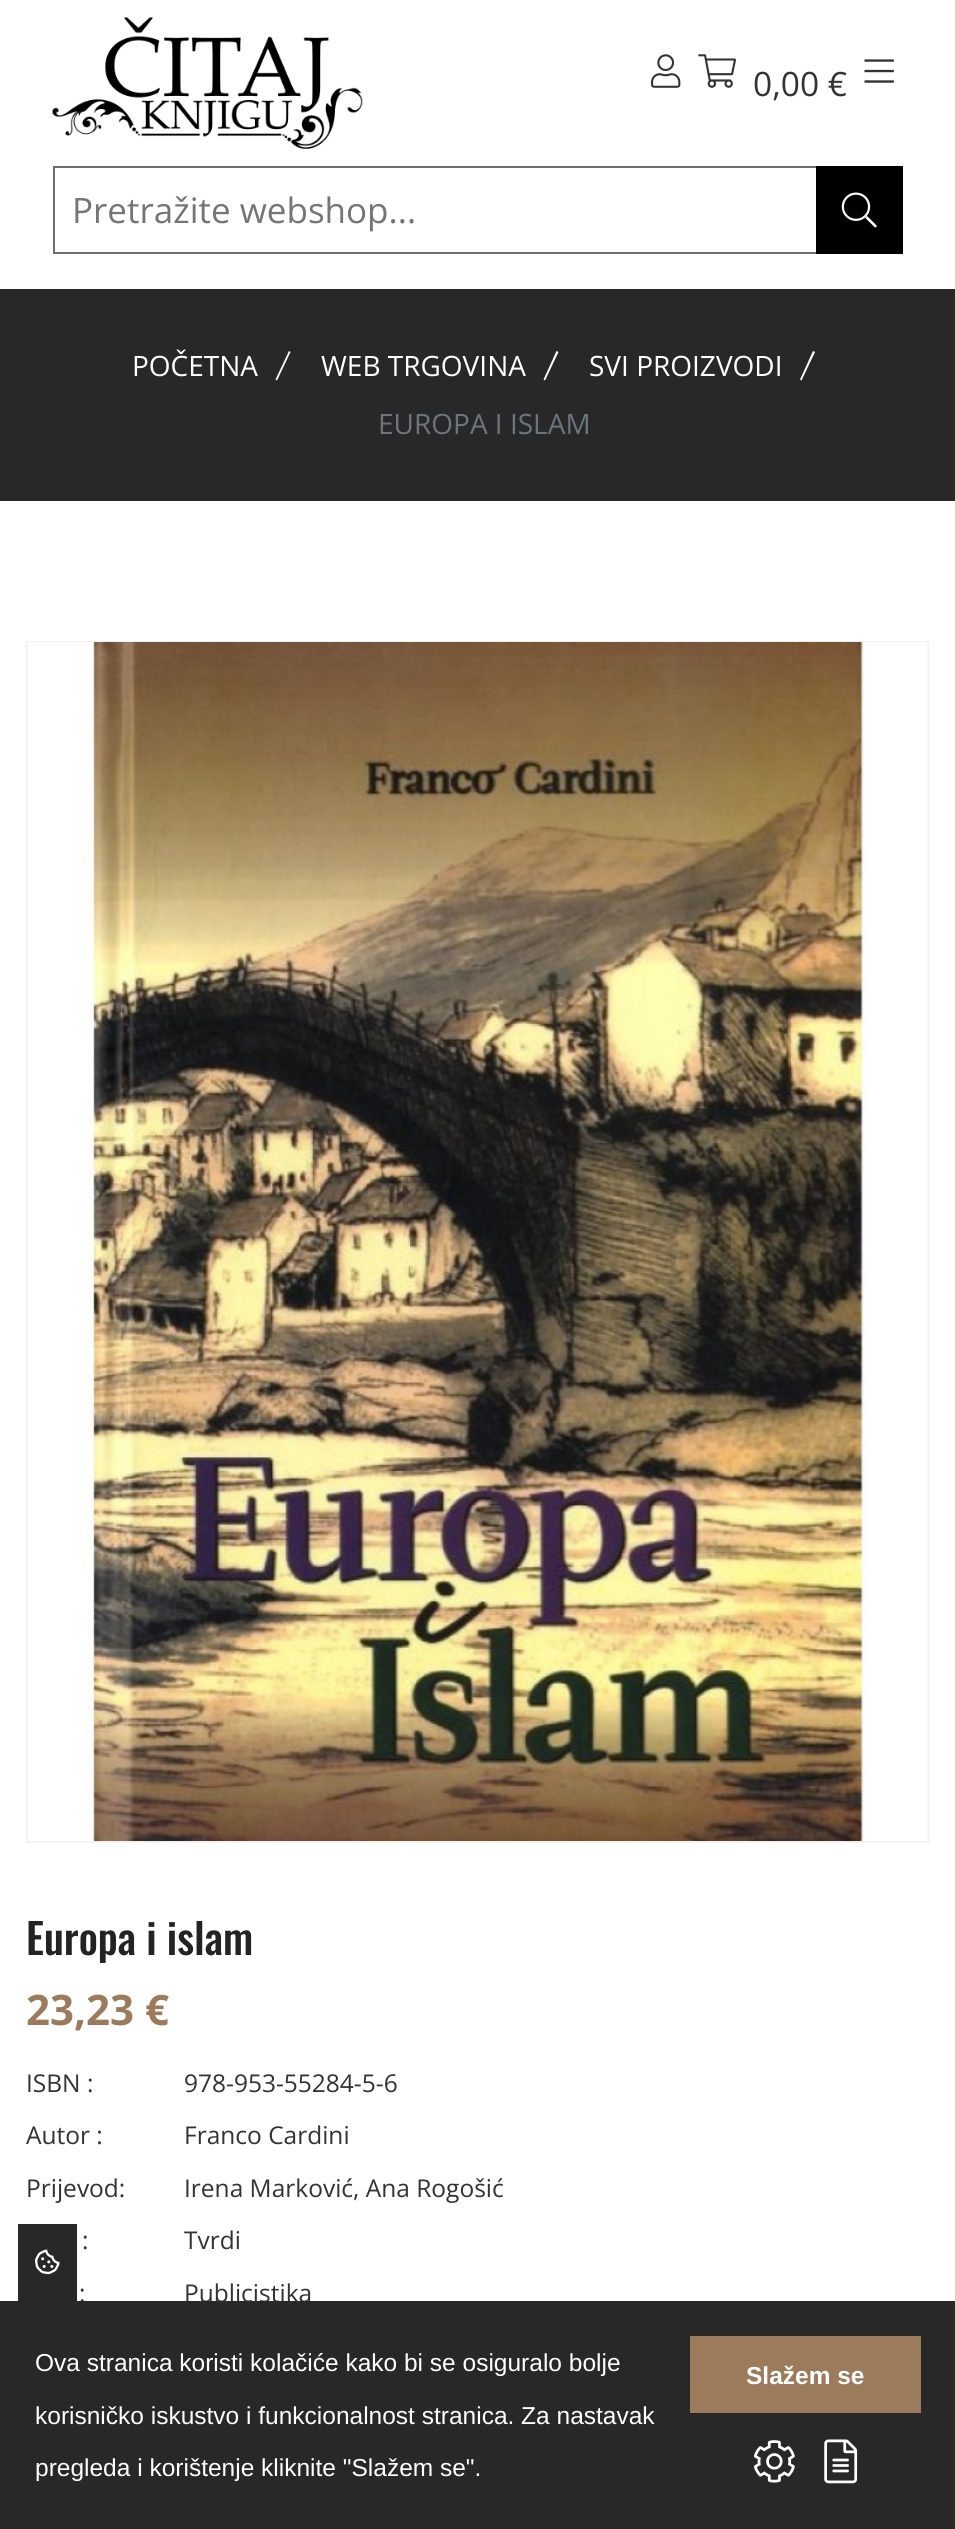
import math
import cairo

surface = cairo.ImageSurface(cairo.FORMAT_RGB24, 955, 2529)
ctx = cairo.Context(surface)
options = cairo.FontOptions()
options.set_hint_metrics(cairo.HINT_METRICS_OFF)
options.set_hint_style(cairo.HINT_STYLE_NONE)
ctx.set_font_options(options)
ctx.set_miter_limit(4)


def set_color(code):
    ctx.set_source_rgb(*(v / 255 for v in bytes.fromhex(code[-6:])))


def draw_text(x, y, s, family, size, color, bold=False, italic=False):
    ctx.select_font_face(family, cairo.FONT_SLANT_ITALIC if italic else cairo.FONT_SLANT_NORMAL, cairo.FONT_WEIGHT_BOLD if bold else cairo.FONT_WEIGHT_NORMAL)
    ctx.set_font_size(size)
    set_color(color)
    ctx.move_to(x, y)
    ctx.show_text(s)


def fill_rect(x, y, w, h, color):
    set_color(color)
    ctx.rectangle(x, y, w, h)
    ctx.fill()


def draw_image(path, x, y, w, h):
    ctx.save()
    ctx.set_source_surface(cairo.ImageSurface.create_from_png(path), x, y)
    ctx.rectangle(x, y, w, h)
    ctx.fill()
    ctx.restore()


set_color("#ffffff")
ctx.paint()
draw_image("assets/img1.png", 52, 17, 311, 132)
draw_image("assets/img2.png", 651, 54, 30, 34)
draw_image("assets/img3.png", 698, 54, 38, 34)
draw_text(753, 96, "0,00 €", "Open Sans", 33.5, "#333333")
draw_image("assets/img4.png", 864, 59, 30, 24)
ctx.rectangle(54, 167, 848, 86)
set_color("#6e6e6e")
ctx.stroke()
draw_text(72, 223, "Pretražite webshop...", "Open Sans", 35, "#757575")
fill_rect(816, 166, 87, 88, "#000000")
draw_image("assets/img5.png", 841, 192, 36, 36)
fill_rect(0, 289, 955, 212, "#282828")
draw_text(132, 376, "POČETNA", "Open Sans", 28, "#ffffff")
ctx.new_path()
ctx.move_to(290.5, 352)
ctx.line_to(277, 380.5)
ctx.line_to(275.5, 379.5)
ctx.line_to(289, 351)
ctx.close_path()
ctx.fill()
draw_text(321, 376, "WEB TRGOVINA", "Open Sans", 28, "#ffffff")
ctx.new_path()
ctx.move_to(558.5, 352)
ctx.line_to(545, 380.5)
ctx.line_to(543.5, 379.5)
ctx.line_to(556.5, 351)
ctx.close_path()
ctx.fill()
draw_text(589, 376, "SVI PROIZVODI", "Open Sans", 28, "#ffffff")
ctx.new_path()
ctx.move_to(815, 352)
ctx.line_to(801.5, 380.5)
ctx.line_to(800, 379.5)
ctx.line_to(813, 351)
ctx.close_path()
ctx.fill()
draw_text(378, 434, "EUROPA I ISLAM", "Open Sans", 28, "#6c757d")
ctx.rectangle(27, 642, 901, 1200)
set_color("#f2f2f2")
ctx.stroke()
draw_image("assets/img6.png", 28, 642, 900, 1199)
draw_text(26, 1955, "Europa i islam", "Oswald Medium", 42, "#212423")
draw_text(26, 2025, "23,23 €", "Open Sans", 42, "#9c7a5c", bold=True)
draw_text(26, 2092, "ISBN :", "Open Sans", 24.5, "#333333")
draw_text(184, 2092, "978-953-55284-5-6", "Open Sans", 24.5, "#333333")
draw_text(26, 2144, "Autor :", "Open Sans", 24.5, "#333333")
draw_text(184, 2144, "Franco Cardini", "Open Sans", 24.5, "#333333")
draw_text(26, 2197, "Prijevod:", "Open Sans", 24.5, "#333333")
draw_text(184, 2197, "Irena Marković, Ana Rogošić", "Open Sans", 24.5, "#333333")
draw_text(82, 2249, ":", "Open Sans", 24.5, "#333333")
draw_text(184, 2249, "Tvrdi", "Open Sans", 24.5, "#333333")
draw_text(79, 2302, ":", "Open Sans", 24.5, "#333333")
draw_text(184, 2302, "Publicistika", "Open Sans", 24.5, "#333333")
fill_rect(0, 2301, 955, 228, "#282828")
fill_rect(18, 2224, 59, 77, "#282828")
draw_image("assets/img7.png", 35, 2249, 25, 26)
draw_text(35, 2371, "Ova stranica koristi kolačiće kako bi se osiguralo bolje", "Liberation Sans", 24.5, "#ffffff")
draw_text(35, 2424, "korisničko iskustvo i funkcionalnost stranica. Za nastavak", "Liberation Sans", 24.5, "#ffffff")
draw_text(35, 2476, "pregleda i korištenje kliknite \"Slažem se\".", "Liberation Sans", 24.5, "#ffffff")
fill_rect(690, 2336, 231, 77, "#9c7a5c")
draw_text(746, 2384, "Slažem se", "Liberation Sans", 24.5, "#ffffff", bold=True)
draw_image("assets/img8.png", 754, 2440, 41, 43)
draw_image("assets/img9.png", 824, 2439, 34, 45)
surface.write_to_png("output.png")
